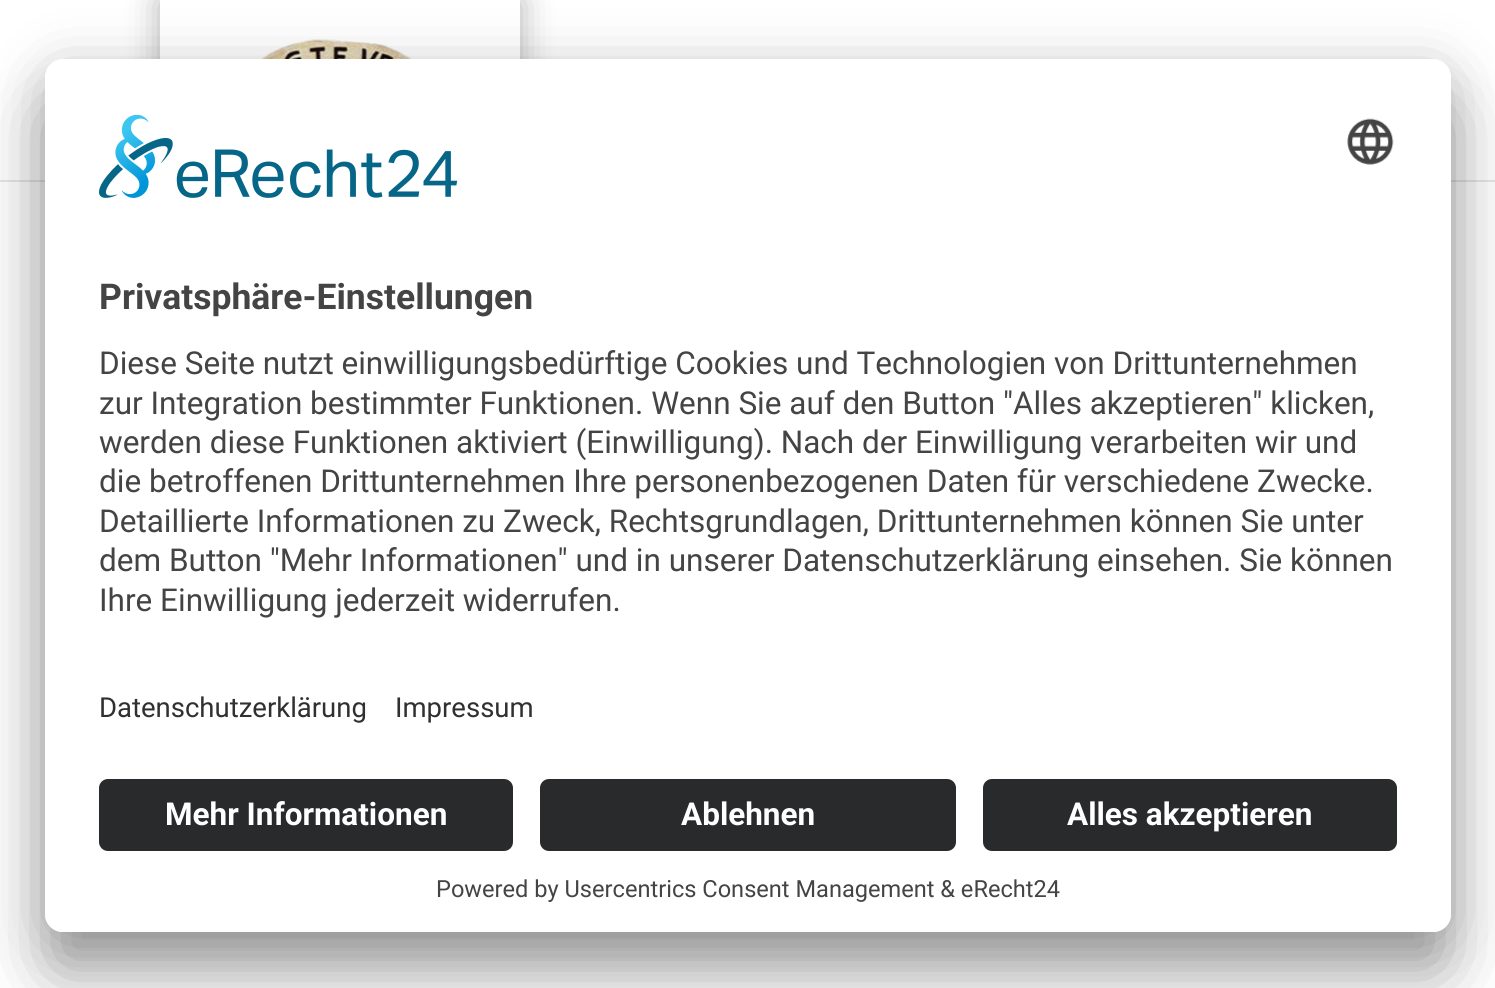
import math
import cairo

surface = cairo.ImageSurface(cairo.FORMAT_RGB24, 1495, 988)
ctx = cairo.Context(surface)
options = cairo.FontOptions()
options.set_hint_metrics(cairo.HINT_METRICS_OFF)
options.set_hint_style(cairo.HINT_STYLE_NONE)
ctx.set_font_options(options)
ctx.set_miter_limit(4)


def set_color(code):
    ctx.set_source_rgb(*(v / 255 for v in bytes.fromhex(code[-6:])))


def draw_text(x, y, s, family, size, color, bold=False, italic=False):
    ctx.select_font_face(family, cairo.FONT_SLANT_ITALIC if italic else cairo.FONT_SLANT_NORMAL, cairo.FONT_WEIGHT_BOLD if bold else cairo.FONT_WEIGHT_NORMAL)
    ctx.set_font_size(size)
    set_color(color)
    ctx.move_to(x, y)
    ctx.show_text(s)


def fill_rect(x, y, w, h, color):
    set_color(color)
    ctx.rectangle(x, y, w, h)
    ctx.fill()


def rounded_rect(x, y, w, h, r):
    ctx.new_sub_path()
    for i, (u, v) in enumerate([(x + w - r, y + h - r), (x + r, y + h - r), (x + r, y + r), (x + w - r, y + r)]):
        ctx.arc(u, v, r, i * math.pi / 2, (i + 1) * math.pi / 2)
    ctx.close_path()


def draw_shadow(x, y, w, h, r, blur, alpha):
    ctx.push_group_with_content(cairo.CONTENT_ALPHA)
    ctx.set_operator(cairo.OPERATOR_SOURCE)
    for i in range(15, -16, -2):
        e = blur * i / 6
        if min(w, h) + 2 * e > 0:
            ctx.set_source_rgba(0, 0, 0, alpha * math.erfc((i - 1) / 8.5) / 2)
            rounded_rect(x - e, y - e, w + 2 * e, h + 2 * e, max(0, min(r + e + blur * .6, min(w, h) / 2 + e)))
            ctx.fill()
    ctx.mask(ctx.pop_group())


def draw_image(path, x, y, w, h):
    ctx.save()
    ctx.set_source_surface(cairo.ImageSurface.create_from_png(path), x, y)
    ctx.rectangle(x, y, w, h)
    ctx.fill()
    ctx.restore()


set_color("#ffffff")
ctx.paint()
fill_rect(0, 180, 1495, 2, "#e6e6e6")
set_color("#000000")
draw_shadow(160, 0, 360, 360, 0, 17, 0.3)
fill_rect(160, 0, 360, 59, "#ffffff")
draw_image("assets/img1.png", 247, 39, 166, 20)
set_color("#000000")
draw_shadow(45, 104, 1406, 873, 18, 31.5, 0.3)
draw_shadow(45, 70, 1406, 873, 18, 29, 0.22)
set_color("#ffffff")
rounded_rect(45, 59, 1406, 873, 18)
ctx.fill()
draw_image("assets/img2.png", 99, 115, 359, 83)
draw_image("assets/img3.png", 1347, 118, 47, 47)
draw_text(99, 309, "Privatsphäre-Einstellungen", "Roboto", 35.5, "#444444", bold=True)
draw_text(99, 374, "Diese Seite nutzt einwilligungsbedürftige Cookies und Technologien von Drittunternehmen", "Roboto", 31.5, "#444444")
draw_text(99, 414, "zur Integration bestimmter Funktionen. Wenn Sie auf den Button \"Alles akzeptieren\" klicken,", "Roboto", 31.5, "#444444")
draw_text(99, 453, "werden diese Funktionen aktiviert (Einwilligung). Nach der Einwilligung verarbeiten wir und", "Roboto", 31.5, "#444444")
draw_text(99, 492, "die betroffenen Drittunternehmen Ihre personenbezogenen Daten für verschiedene Zwecke.", "Roboto", 31.5, "#444444")
draw_text(99, 532, "Detaillierte Informationen zu Zweck, Rechtsgrundlagen, Drittunternehmen können Sie unter", "Roboto", 31.5, "#444444")
draw_text(99, 571, "dem Button \"Mehr Informationen\" und in unserer Datenschutzerklärung einsehen. Sie können", "Roboto", 31.5, "#444444")
draw_text(99, 611, "Ihre Einwilligung jederzeit widerrufen.", "Roboto", 31.5, "#444444")
draw_text(99, 717, "Datenschutzerklärung", "Roboto", 27.5, "#303030")
draw_text(395, 717, "Impressum", "Roboto", 27.5, "#303030")
set_color("#ffffff")
ctx.new_path()
ctx.move_to(45, 761)
ctx.line_to(1451, 761)
ctx.line_to(1451, 914)
ctx.curve_to(1451, 924, 1443, 932, 1433, 932)
ctx.line_to(63, 932)
ctx.curve_to(53, 932, 45, 924, 45, 914)
ctx.close_path()
ctx.fill()
set_color("#292a2b")
rounded_rect(99, 779, 414, 72, 9)
ctx.fill()
draw_text(165, 825, "Mehr Informationen", "Roboto", 31.5, "#ffffff", bold=True)
set_color("#292a2b")
rounded_rect(540, 779, 416, 72, 9)
ctx.fill()
draw_text(681, 825, "Ablehnen", "Roboto", 31.5, "#ffffff", bold=True)
set_color("#292a2b")
rounded_rect(983, 779, 414, 72, 9)
ctx.fill()
draw_text(1067, 825, "Alles akzeptieren", "Roboto", 31.5, "#ffffff", bold=True)
draw_text(436, 897, "Powered by Usercentrics Consent Management & eRecht24", "Roboto", 23.6, "#444444")
surface.write_to_png("output.png")
